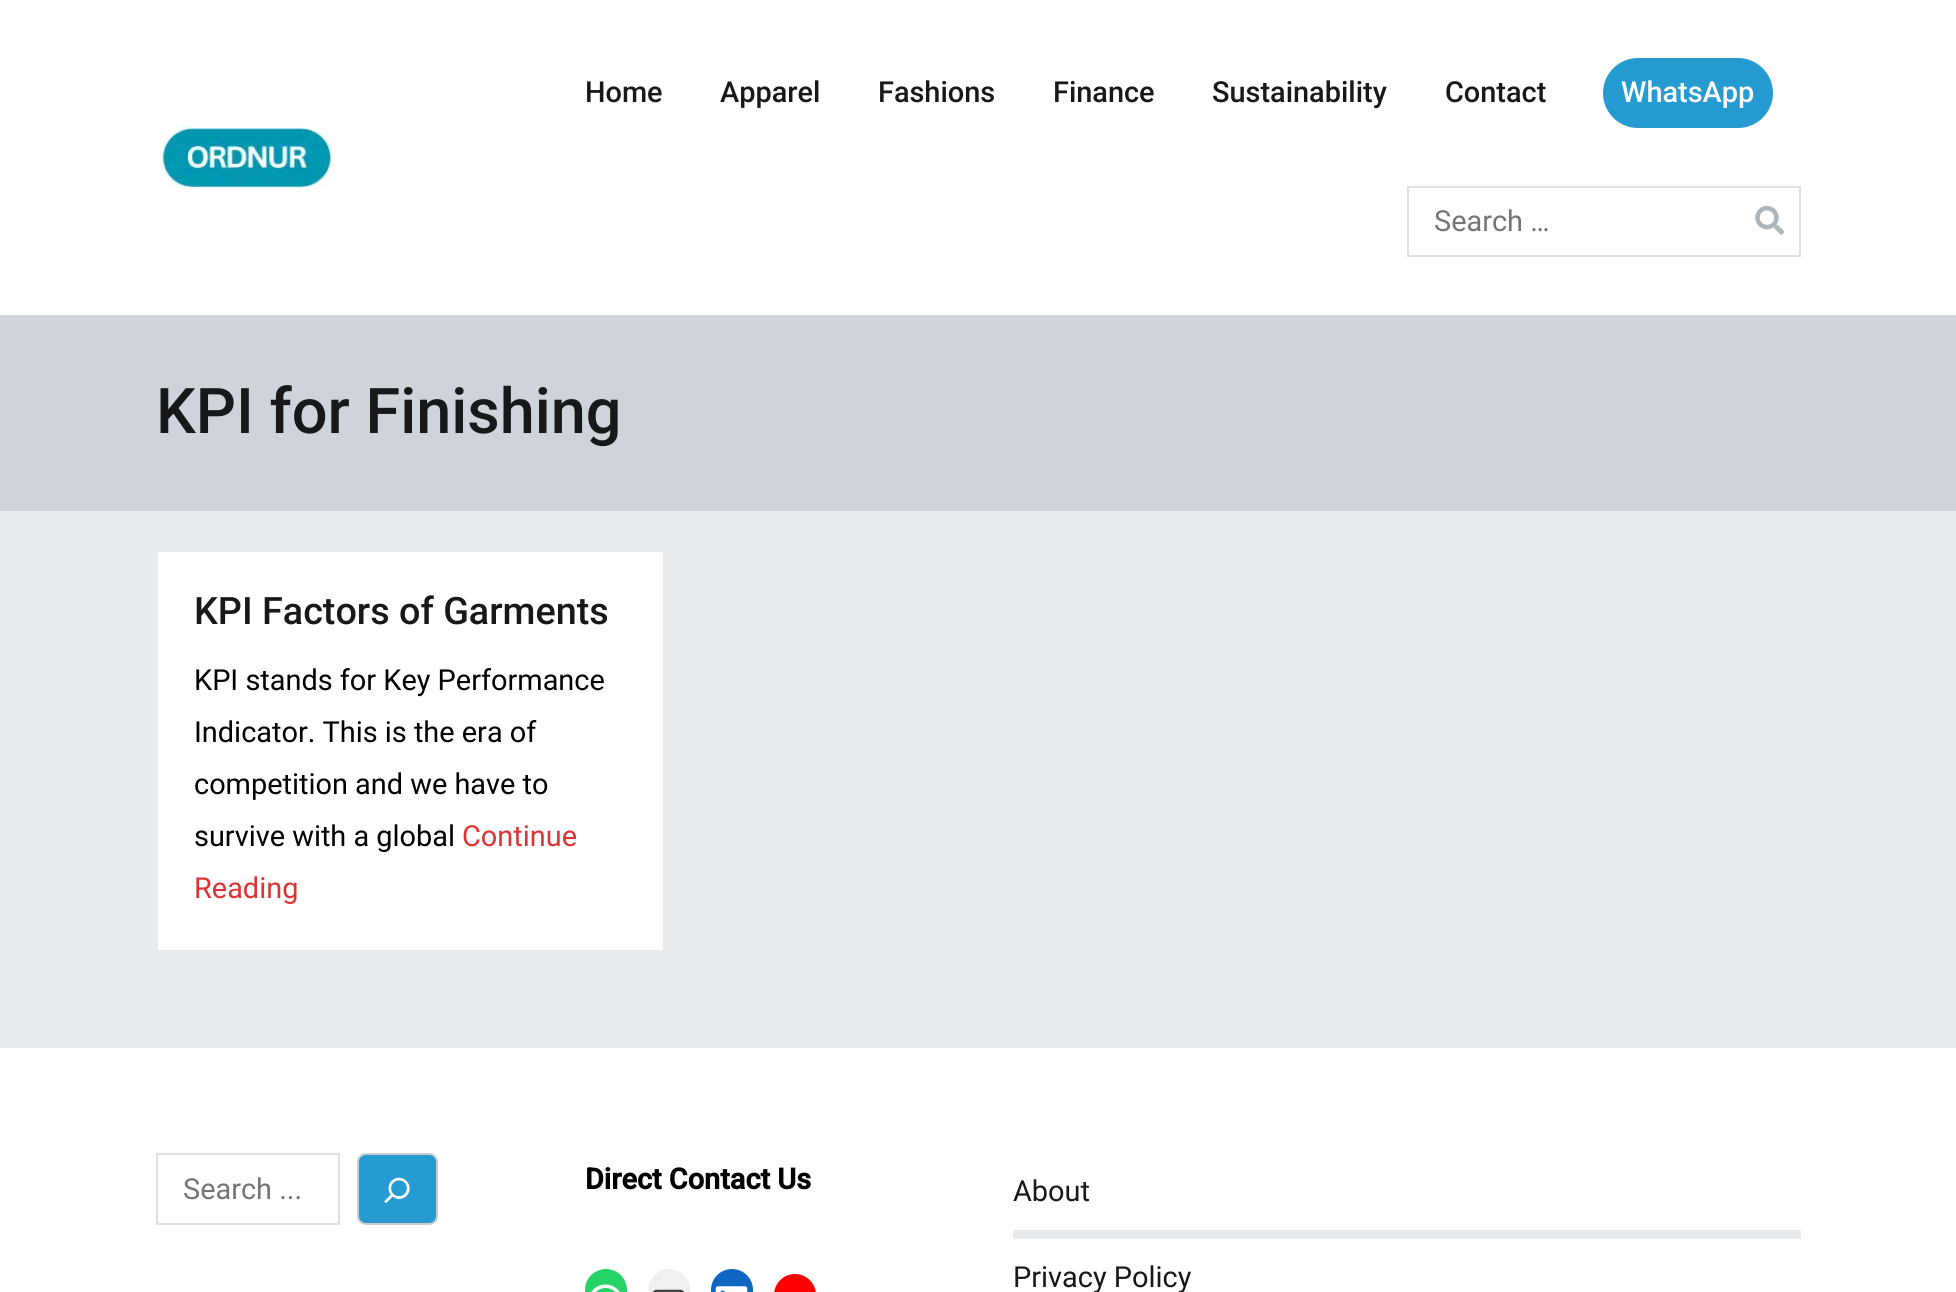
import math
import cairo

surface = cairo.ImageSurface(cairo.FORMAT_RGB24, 1956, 1292)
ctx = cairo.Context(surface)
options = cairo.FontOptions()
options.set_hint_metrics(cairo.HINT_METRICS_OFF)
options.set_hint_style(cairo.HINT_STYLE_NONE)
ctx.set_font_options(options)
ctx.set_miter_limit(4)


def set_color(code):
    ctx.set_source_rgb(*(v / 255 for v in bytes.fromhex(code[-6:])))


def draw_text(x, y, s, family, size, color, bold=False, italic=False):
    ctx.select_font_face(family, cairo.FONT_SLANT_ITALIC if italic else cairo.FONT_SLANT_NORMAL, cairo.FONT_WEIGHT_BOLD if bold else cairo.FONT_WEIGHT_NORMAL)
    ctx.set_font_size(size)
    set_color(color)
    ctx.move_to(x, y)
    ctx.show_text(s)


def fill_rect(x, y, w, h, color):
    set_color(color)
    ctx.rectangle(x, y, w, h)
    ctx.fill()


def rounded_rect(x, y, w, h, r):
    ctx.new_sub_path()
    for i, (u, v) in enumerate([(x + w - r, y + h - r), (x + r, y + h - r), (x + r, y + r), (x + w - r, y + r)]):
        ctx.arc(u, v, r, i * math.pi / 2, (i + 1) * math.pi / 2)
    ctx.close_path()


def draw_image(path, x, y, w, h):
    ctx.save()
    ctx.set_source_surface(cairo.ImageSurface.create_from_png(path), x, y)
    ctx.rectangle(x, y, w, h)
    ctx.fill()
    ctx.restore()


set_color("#e9ecef")
ctx.paint()
fill_rect(0, 0, 1956, 315, "#ffffff")
draw_image("assets/img1.png", 156, 126, 180, 63)
draw_text(585, 102, "Home", "Roboto Medium", 28.9, "#16181a")
draw_text(720, 102, "Apparel", "Roboto Medium", 28.9, "#16181a")
draw_text(878, 102, "Fashions", "Roboto Medium", 28.9, "#16181a")
draw_text(1053, 102, "Finance", "Roboto Medium", 28.9, "#16181a")
draw_text(1212, 102, "Sustainability", "Roboto Medium", 28.9, "#16181a")
draw_text(1445, 102, "Contact", "Roboto Medium", 28.9, "#16181a")
set_color("#269bd1")
rounded_rect(1603, 58, 170, 70, 35)
ctx.fill()
draw_text(1621, 102, "WhatsApp", "Roboto Medium", 28.9, "#ffffff")
ctx.rectangle(1408, 187, 392, 69)
set_color("#dee2e6")
ctx.stroke()
draw_text(1434, 231, "Search …", "Roboto", 28.9, "#757575")
draw_image("assets/img2.png", 1755, 205, 30, 30)
fill_rect(0, 315, 1956, 196, "#ced4da")
draw_text(156, 433, "KPI for Finishing", "Roboto Medium", 63, "#16181a")
fill_rect(158, 552, 505, 398, "#ffffff")
draw_text(194, 624, "KPI Factors of Garments", "Roboto Medium", 37.75, "#16181a")
draw_text(194, 690, "KPI stands for Key Performance", "Roboto", 28.9, "#000000")
draw_text(194, 742, "Indicator. This is the era of", "Roboto", 28.9, "#000000")
draw_text(194, 794, "competition and we have to", "Roboto", 28.9, "#000000")
draw_text(194, 846, "survive with a global", "Roboto", 28.9, "#000000")
draw_text(462, 846, "Continue", "Roboto", 28.9, "#dd3333")
draw_text(194, 898, "Reading", "Roboto", 28.9, "#dd3333")
fill_rect(0, 1048, 1956, 244, "#ffffff")
ctx.rectangle(157, 1154, 182, 70)
set_color("#dee2e6")
ctx.stroke()
draw_text(183, 1199, "Search ...", "Roboto", 28.9, "#757575")
set_color("#269bd1")
rounded_rect(358, 1154, 79, 70, 8)
ctx.fill_preserve()
set_color("#cccccc")
ctx.stroke()
draw_image("assets/img3.png", 384, 1177, 26, 27)
draw_text(585, 1189, "Direct Contact Us", "Roboto", 28.9, "#000000", bold=True)
set_color("#25d366")
rounded_rect(585, 1269, 42, 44, 21)
ctx.fill()
draw_image("assets/img4.png", 591, 1284, 29, 8)
set_color("#f0f0f0")
rounded_rect(648, 1269, 42, 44, 21)
ctx.fill()
draw_image("assets/img5.png", 653, 1289, 31, 3)
set_color("#0d66c2")
rounded_rect(711, 1269, 42, 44, 21)
ctx.fill()
draw_image("assets/img6.png", 715, 1286, 33, 6)
set_color("#ff0000")
rounded_rect(774, 1274, 42, 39, 21)
ctx.fill()
fill_rect(1013, 1230, 788, 9, "#e9ecef")
draw_text(1013, 1201, "About", "Roboto", 28.9, "#16181a")
draw_text(1013, 1287, "Privacy Policy", "Roboto", 28.9, "#16181a")
surface.write_to_png("output.png")
